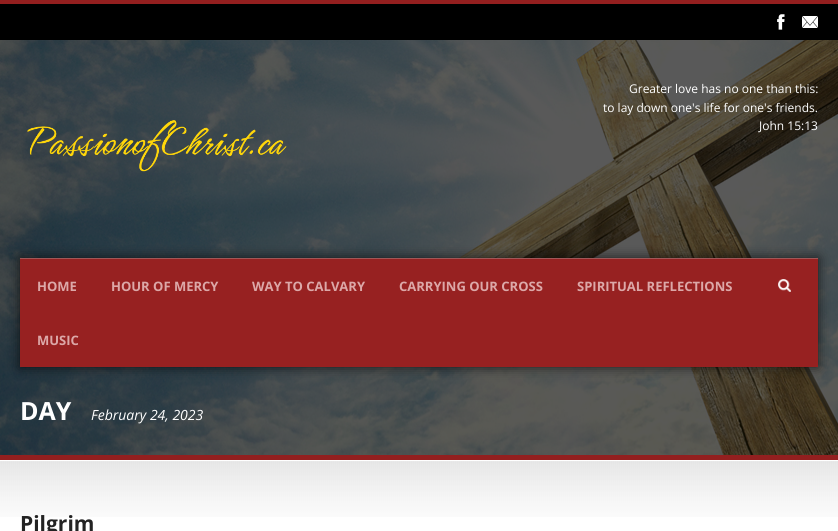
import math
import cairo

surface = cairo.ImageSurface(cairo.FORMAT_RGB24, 838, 531)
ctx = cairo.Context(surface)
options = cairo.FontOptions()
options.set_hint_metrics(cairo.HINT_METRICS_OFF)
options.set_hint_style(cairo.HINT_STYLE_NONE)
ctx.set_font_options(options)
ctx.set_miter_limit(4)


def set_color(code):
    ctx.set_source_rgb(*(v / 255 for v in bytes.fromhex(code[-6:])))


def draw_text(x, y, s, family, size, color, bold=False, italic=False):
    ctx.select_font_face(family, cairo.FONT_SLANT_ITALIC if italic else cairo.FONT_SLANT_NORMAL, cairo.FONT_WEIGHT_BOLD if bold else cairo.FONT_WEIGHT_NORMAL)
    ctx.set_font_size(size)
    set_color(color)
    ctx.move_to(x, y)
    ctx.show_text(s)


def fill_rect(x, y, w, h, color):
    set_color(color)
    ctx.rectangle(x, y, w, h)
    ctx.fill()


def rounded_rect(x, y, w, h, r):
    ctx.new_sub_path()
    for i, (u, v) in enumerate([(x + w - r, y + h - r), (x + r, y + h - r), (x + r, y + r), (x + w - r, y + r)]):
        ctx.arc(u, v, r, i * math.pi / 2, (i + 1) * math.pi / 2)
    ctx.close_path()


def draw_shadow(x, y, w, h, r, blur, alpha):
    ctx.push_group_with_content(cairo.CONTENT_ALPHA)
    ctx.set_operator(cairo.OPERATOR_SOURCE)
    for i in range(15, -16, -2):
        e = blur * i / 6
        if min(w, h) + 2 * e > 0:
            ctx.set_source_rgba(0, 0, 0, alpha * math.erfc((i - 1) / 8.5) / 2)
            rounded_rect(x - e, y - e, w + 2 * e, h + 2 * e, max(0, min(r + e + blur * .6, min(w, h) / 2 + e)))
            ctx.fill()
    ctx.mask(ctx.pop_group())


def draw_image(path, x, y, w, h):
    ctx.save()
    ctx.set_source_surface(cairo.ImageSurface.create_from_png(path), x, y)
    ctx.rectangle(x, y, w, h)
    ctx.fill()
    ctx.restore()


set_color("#ffffff")
ctx.paint()
fill_rect(0, 4, 838, 36, "#000000")
fill_rect(0, 0, 838, 4, "#931f1f")
draw_image("assets/img1.png", 777, 14, 8, 16)
draw_image("assets/img2.png", 802, 16, 16, 12)
draw_image("assets/img3.png", 0, 40, 838, 415)
draw_text(629, 93, "Greater love has no one than this:", "Open Sans", 12, "#ffffff")
draw_text(603, 112, "to lay down one's life for one's friends.", "Open Sans", 12, "#ffffff")
draw_text(759, 130, "John 15:13", "Open Sans", 12, "#ffffff")
draw_image("assets/img4.png", 27, 120, 260, 52)
set_color("#000000")
draw_shadow(20, 258, 798, 109, 0, 6, 0.7)
fill_rect(20, 259, 798, 108, "#972121")
fill_rect(20, 258, 798, 1, "#a05858")
draw_text(37, 291, "HOME", "Open Sans", 13, "#dca8a8", bold=True)
draw_text(111, 291, "HOUR OF MERCY", "Open Sans", 13, "#dca8a8", bold=True)
draw_text(252, 291, "WAY TO CALVARY", "Open Sans", 13, "#dca8a8", bold=True)
draw_text(399, 291, "CARRYING OUR CROSS", "Open Sans", 13, "#dca8a8", bold=True)
draw_text(577, 291, "SPIRITUAL REFLECTIONS", "Open Sans", 13, "#dca8a8", bold=True)
draw_text(37, 345, "MUSIC", "Open Sans", 13, "#dca8a8", bold=True)
draw_image("assets/img5.png", 778, 279, 13, 13)
draw_text(20, 420, "DAY", "Open Sans", 25, "#ffffff", bold=True)
draw_text(91, 420, "February 24, 2023", "Open Sans", 14, "#ffffff", italic=True)
fill_rect(0, 455, 838, 5, "#931f1f")
draw_image("assets/img6.png", 0, 461, 838, 56)
draw_text(20, 531, "Pilgrim", "Open Sans", 21, "#232323", bold=True)
surface.write_to_png("output.png")
